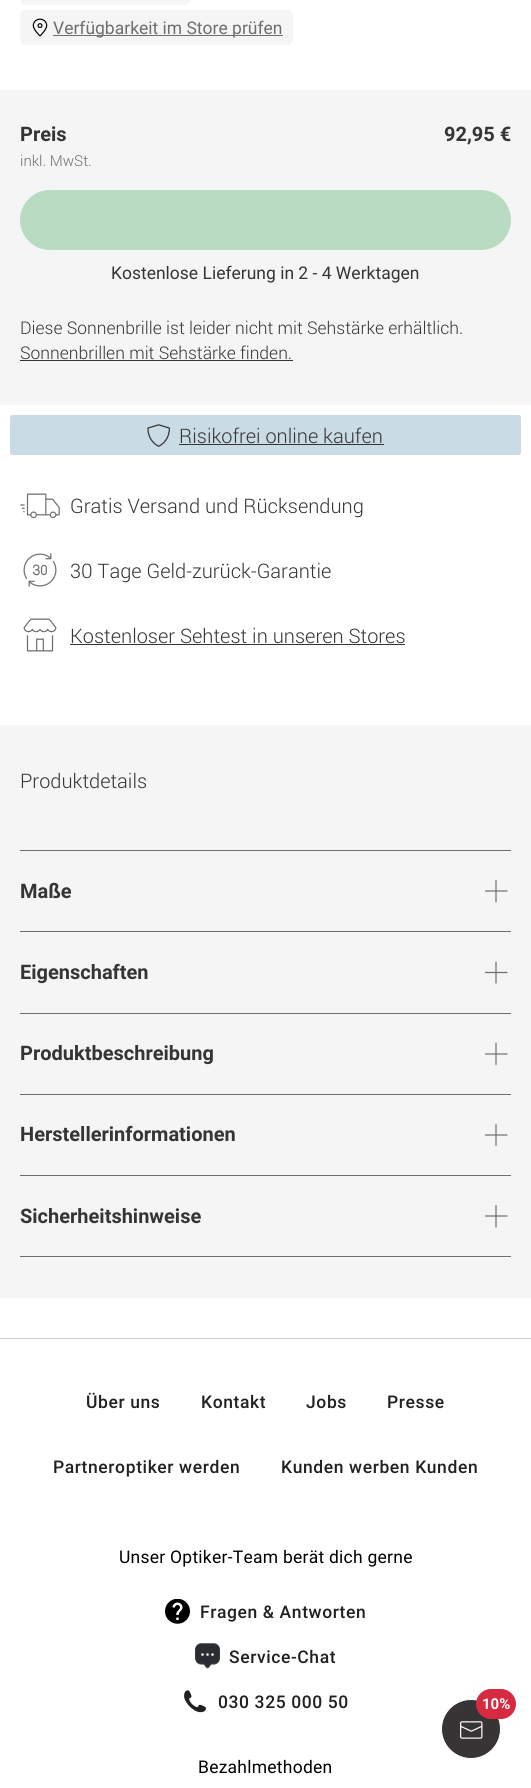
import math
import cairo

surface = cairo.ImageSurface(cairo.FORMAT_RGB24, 531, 1788)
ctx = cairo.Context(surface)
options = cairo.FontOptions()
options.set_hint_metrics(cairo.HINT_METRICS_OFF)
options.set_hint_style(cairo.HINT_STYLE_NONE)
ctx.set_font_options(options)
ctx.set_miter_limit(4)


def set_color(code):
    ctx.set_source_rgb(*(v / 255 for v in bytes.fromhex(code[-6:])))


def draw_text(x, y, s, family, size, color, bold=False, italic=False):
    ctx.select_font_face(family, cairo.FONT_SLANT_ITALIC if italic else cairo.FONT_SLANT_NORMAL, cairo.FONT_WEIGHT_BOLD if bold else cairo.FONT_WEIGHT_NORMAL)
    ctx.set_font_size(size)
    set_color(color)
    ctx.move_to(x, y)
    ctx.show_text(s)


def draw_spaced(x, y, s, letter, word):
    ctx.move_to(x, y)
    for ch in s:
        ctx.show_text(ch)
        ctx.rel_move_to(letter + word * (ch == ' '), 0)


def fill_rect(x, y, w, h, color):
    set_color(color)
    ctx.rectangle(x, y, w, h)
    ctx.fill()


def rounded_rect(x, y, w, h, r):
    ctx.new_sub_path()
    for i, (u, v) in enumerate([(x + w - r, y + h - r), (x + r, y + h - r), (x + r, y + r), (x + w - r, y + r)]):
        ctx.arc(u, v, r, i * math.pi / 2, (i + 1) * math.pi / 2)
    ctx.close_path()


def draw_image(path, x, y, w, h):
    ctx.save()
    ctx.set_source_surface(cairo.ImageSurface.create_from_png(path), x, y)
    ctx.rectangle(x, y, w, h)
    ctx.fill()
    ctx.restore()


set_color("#ffffff")
ctx.paint()
set_color("#f5f5f5")
rounded_rect(20, -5, 170, 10, 5)
ctx.fill()
rounded_rect(20, 10, 273, 35, 5)
ctx.fill()
draw_image("assets/img1.png", 32, 18, 16, 19)
fill_rect(53, 35, 230, 1, "#6e6e6e")
draw_text(53, 34, "Verfügbarkeit im Store prüfen", "Roboto", 17.5, "#6e6e6e")
fill_rect(0, 90, 531, 315, "#f5f5f5")
draw_text(20, 141, "Preis", "Roboto", 20, "#363434", bold=True)
draw_text(20, 166, "inkl. MwSt.", "Roboto Light", 15, "#6e6e6e")
draw_text(444, 141, "92,95 €", "Roboto", 20, "#363434", bold=True)
set_color("#b8dbc1")
rounded_rect(21.5, 191.5, 488, 57, 28.5)
ctx.fill_preserve()
ctx.set_line_width(3)
ctx.stroke()
draw_text(111, 279, "Kostenlose Lieferung in 2 - 4 Werktagen", "Roboto", 17.5, "#363434")
draw_text(20, 334, "Diese Sonnenbrille ist leider nicht mit Sehstärke erhältlich.", "Roboto Light", 17.5, "#363434")
draw_text(20, 359, "Sonnenbrillen mit Sehstärke finden.", "Roboto Light", 17.5, "#363434")
fill_rect(20, 360, 273, 1, "#363434")
set_color("#c9dbe5")
rounded_rect(10, 415, 511, 40, 2.5)
ctx.fill()
draw_image("assets/img2.png", 147, 424, 23, 23)
draw_text(179, 443, "Risikofrei online kaufen", "Roboto Light", 20, "#363434")
fill_rect(179, 444, 205, 1, "#363434")
draw_image("assets/img3.png", 20, 493, 40, 26)
draw_text(70, 513, "Gratis Versand und Rücksendung", "Roboto Light", 20, "#363434")
draw_image("assets/img4.png", 23, 553, 34, 34)
draw_text(70, 578, "30 Tage Geld-zurück-Garantie", "Roboto Light", 20, "#363434")
draw_image("assets/img5.png", 23, 618, 34, 34)
draw_text(70, 643, "Kostenloser Sehtest in unseren Stores", "Roboto Light", 20, "#363434")
fill_rect(70, 644, 335, 1, "#363434")
fill_rect(0, 725, 531, 573, "#f5f5f5")
draw_text(20, 788, "Produktdetails", "Roboto Light", 20, "#363434")
fill_rect(20, 850, 491, 1, "#6e6e6e")
fill_rect(20, 931, 491, 1, "#6e6e6e")
ctx.save()
ctx.rectangle(20, 851, 51, 80)
ctx.clip()
draw_text(20, 898, "Maße", "Roboto", 20, "#363434", bold=True)
ctx.restore()
ctx.new_path()
ctx.move_to(485.5, 891)
ctx.line_to(507, 891)
ctx.move_to(496, 902)
ctx.line_to(496, 880.5)
ctx.set_line_width(1.2)
ctx.set_line_cap(cairo.LINE_CAP_ROUND)
ctx.stroke()
fill_rect(20, 1013, 491, 1, "#6e6e6e")
draw_text(20, 979, "Eigenschaften", "Roboto", 20, "#363434", bold=True)
ctx.new_path()
ctx.move_to(485.5, 972.5)
ctx.line_to(507, 972.5)
ctx.move_to(496, 983)
ctx.line_to(496, 962)
set_color("#6e6e6e")
ctx.stroke()
fill_rect(20, 1094, 491, 1, "#6e6e6e")
draw_text(20, 1060, "Produktbeschreibung", "Roboto", 20, "#363434", bold=True)
ctx.new_path()
ctx.move_to(485.5, 1054)
ctx.line_to(507, 1054)
ctx.move_to(496, 1064.5)
ctx.line_to(496, 1043)
set_color("#6e6e6e")
ctx.stroke()
fill_rect(20, 1175, 491, 1, "#6e6e6e")
draw_text(20, 1141, "Herstellerinformationen", "Roboto", 20, "#363434", bold=True)
ctx.new_path()
ctx.move_to(485.5, 1135)
ctx.line_to(507, 1135)
ctx.move_to(496, 1145.5)
ctx.line_to(496, 1124.5)
set_color("#6e6e6e")
ctx.stroke()
fill_rect(20, 1256, 491, 1, "#6e6e6e")
draw_text(20, 1223, "Sicherheitshinweise", "Roboto", 20, "#363434", bold=True)
ctx.new_path()
ctx.move_to(485.5, 1216)
ctx.line_to(507, 1216)
ctx.move_to(496, 1227)
ctx.line_to(496, 1205.5)
set_color("#6e6e6e")
ctx.stroke()
set_color("#363434")
ctx.arc(471, 1729, 29.5, 0, 2 * math.pi)
ctx.fill_preserve()
set_color("#ffffff")
ctx.set_line_width(1)
ctx.set_line_cap(cairo.LINE_CAP_BUTT)
ctx.stroke()
set_color("#d52a3f")
rounded_rect(476, 1689, 40, 30, 15)
ctx.fill()
draw_text(482, 1709, "10%", "Roboto", 15, "#ffffff", bold=True)
draw_image("assets/img6.png", 460, 1721, 23, 18)
fill_rect(0, 1338, 531, 1, "#cccccc")
ctx.select_font_face("Roboto Medium")
ctx.set_font_size(17.5)
set_color("#212121")
draw_spaced(86, 1408, "Über uns", 0.6, 0)
draw_spaced(201, 1408, "Kontakt", 0.6, 0)
draw_spaced(306, 1408, "Jobs", 0.6, 0)
draw_spaced(387, 1408, "Presse", 0.6, 0)
draw_spaced(53, 1473, "Partneroptiker werden", 0.6, 0)
draw_spaced(281, 1473, "Kunden werben Kunden", 0.6, 0)
ctx.select_font_face("Roboto")
set_color("#000000")
draw_spaced(119, 1563, "Unser Optiker-Team berät dich gerne", 0.25, 0)
draw_image("assets/img7.png", 165, 1599, 25, 25)
ctx.select_font_face("Roboto Medium")
set_color("#212121")
draw_spaced(200, 1618, "Fragen & Antworten", 0.6, 0)
draw_image("assets/img8.png", 195, 1643, 25, 26)
draw_spaced(229, 1663, "Service-Chat", 0.6, 0)
draw_image("assets/img9.png", 184, 1690, 22, 23)
draw_spaced(218, 1708, "030 325 000 50", 0.6, 0)
ctx.select_font_face("Roboto")
set_color("#000000")
draw_spaced(198, 1773, "Bezahlmethoden", 0.25, 0)
surface.write_to_png("output.png")
